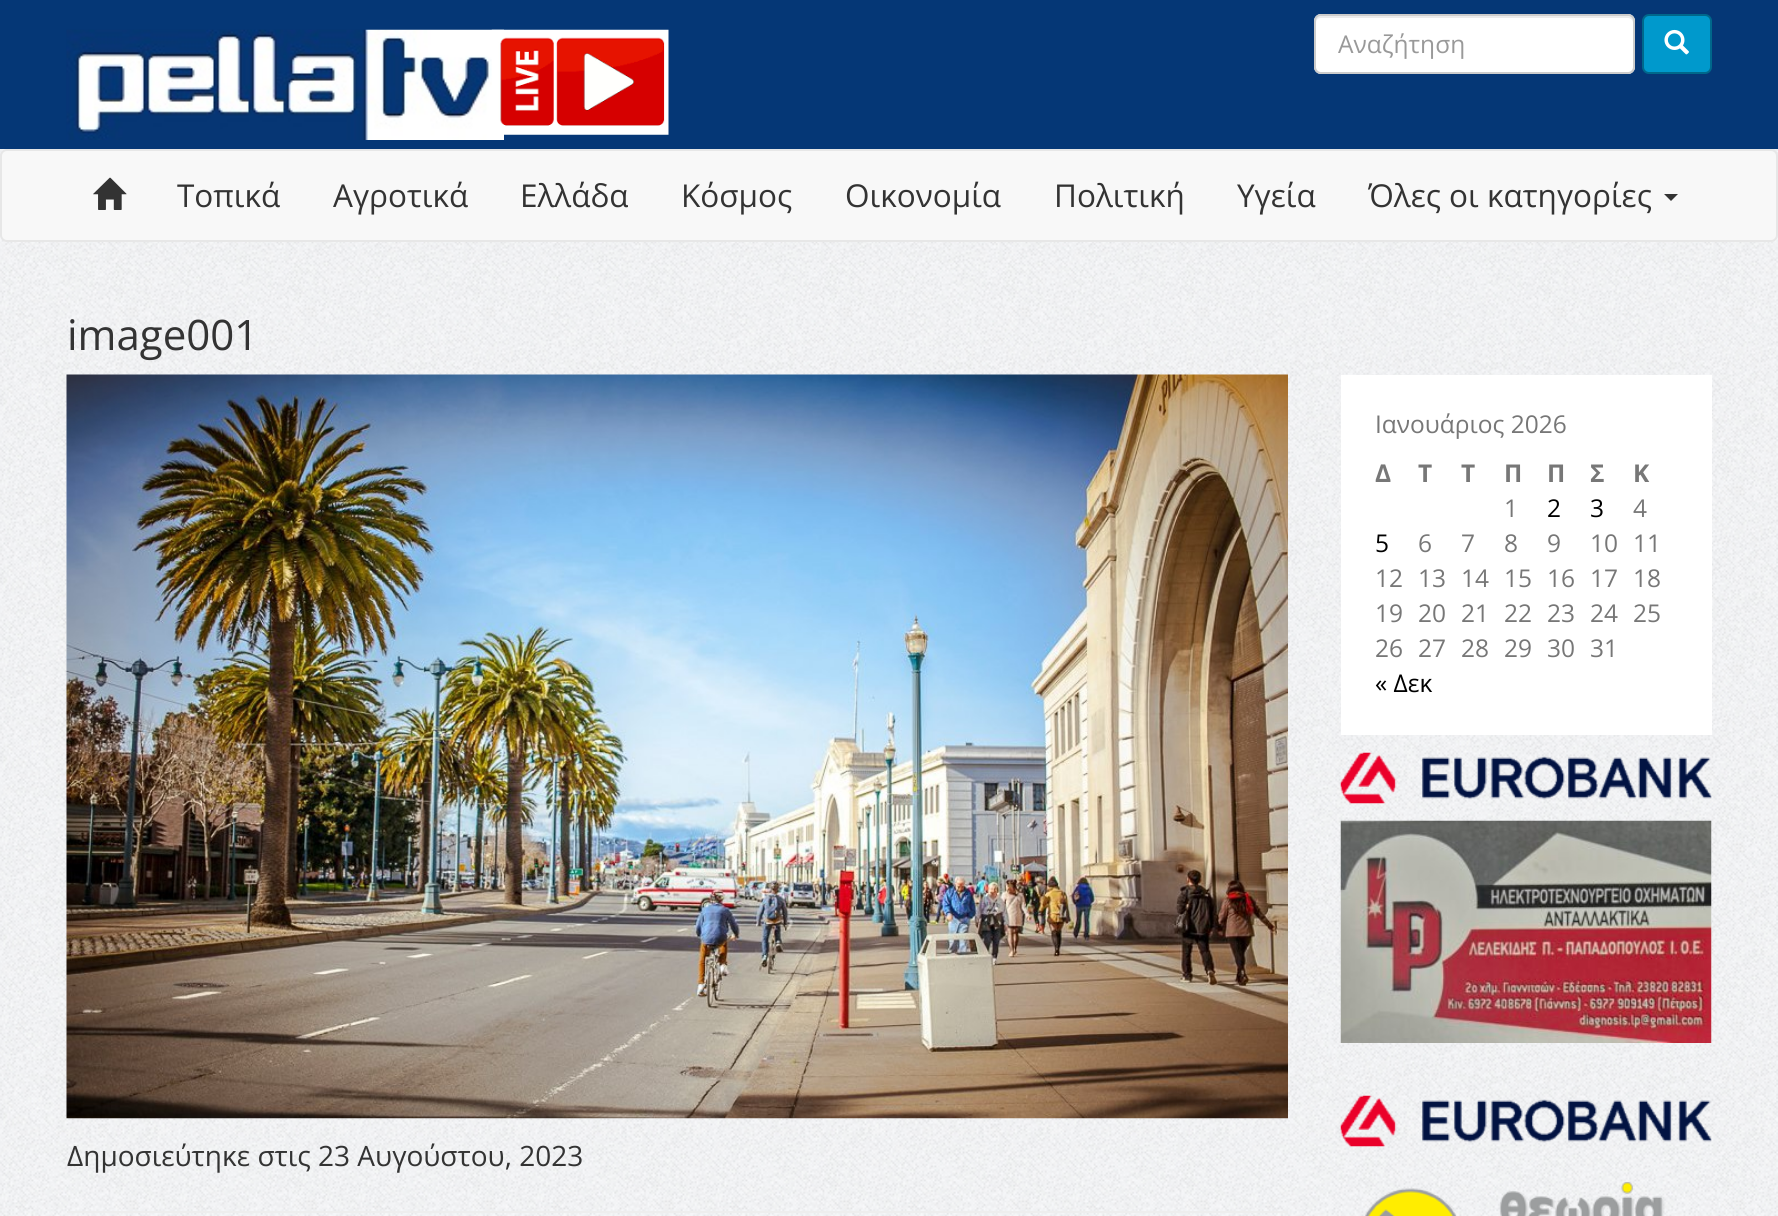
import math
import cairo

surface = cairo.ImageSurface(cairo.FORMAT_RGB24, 1778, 1216)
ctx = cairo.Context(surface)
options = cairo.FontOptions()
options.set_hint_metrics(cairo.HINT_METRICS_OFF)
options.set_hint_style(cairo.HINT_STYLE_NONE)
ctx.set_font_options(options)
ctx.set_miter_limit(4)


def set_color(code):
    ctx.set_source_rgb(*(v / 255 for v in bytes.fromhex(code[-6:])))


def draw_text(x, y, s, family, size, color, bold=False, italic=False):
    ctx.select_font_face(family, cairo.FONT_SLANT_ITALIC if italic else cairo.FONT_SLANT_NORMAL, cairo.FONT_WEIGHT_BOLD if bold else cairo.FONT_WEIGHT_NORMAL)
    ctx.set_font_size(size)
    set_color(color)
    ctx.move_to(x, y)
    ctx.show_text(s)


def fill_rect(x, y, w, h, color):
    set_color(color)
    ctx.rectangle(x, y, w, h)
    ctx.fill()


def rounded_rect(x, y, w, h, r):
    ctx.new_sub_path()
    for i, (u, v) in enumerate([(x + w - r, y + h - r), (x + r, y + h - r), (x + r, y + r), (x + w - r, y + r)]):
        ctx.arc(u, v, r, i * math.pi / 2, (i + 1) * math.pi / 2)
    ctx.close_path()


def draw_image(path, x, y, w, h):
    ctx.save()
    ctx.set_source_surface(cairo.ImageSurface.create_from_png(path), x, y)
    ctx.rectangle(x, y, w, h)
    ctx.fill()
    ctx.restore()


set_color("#ffffff")
ctx.paint()
draw_image("assets/img1.png", 0, 149, 1778, 1067)
fill_rect(0, 0, 1778, 149, "#053776")
draw_image("assets/img2.png", 66, 29, 438, 111)
draw_image("assets/img3.png", 491, 29, 178, 106)
set_color("#ffffff")
rounded_rect(1314, 14, 321, 60, 7)
ctx.fill()
set_color("#ececec")
ctx.new_path()
ctx.move_to(1321, 18)
ctx.line_to(1628, 18)
ctx.curve_to(1630, 18, 1633, 20, 1633, 23)
ctx.line_to(1633, 21)
ctx.curve_to(1633, 18, 1631, 16, 1628, 16)
ctx.line_to(1321, 16)
ctx.curve_to(1318, 16, 1316, 18, 1316, 21)
ctx.line_to(1316, 23)
ctx.curve_to(1316, 20, 1318, 18, 1321, 18)
ctx.close_path()
ctx.fill()
rounded_rect(1315, 15, 319, 58, 6)
set_color("#cccccc")
ctx.stroke()
draw_text(1338, 53, "Αναζήτηση", "Open Sans", 24.5, "#999999")
set_color("#0099cc")
rounded_rect(1643, 15, 68, 58, 6)
ctx.fill_preserve()
set_color("#00688b")
ctx.stroke()
draw_image("assets/img4.png", 1664, 29, 25, 26)
set_color("#f8f8f8")
rounded_rect(1, 150, 1776, 91, 6)
ctx.fill_preserve()
set_color("#e7e7e7")
ctx.stroke()
draw_image("assets/img5.png", 93, 177, 34, 33)
draw_text(177, 207, "Τοπικά", "Open Sans", 31.5, "#333333")
draw_text(333, 207, "Αγροτικά", "Open Sans", 31.5, "#333333")
draw_text(520, 207, "Ελλάδα", "Open Sans", 31.5, "#333333")
draw_text(681, 207, "Κόσμος", "Open Sans", 31.5, "#333333")
draw_text(845, 207, "Οικονομία", "Open Sans", 31.5, "#333333")
draw_text(1054, 207, "Πολιτική", "Open Sans", 31.5, "#333333")
draw_text(1237, 207, "Υγεία", "Open Sans", 31.5, "#333333")
draw_text(1368, 207, "Όλες οι κατηγορίες", "Open Sans", 31.5, "#333333")
ctx.new_path()
ctx.move_to(1664, 194)
ctx.line_to(1678, 194)
ctx.line_to(1671, 201)
ctx.close_path()
ctx.fill()
draw_text(67, 350, "image001", "Open Sans", 42, "#333333")
fill_rect(1341, 375, 371, 360, "#ffffff")
draw_text(1375, 433, "Ιανουάριος 2026", "Open Sans", 24.5, "#777777")
draw_text(1375, 482, "Δ", "Open Sans", 24.5, "#777777", bold=True)
draw_text(1418, 482, "Τ", "Open Sans", 24.5, "#777777", bold=True)
draw_text(1461, 482, "Τ", "Open Sans", 24.5, "#777777", bold=True)
draw_text(1504, 482, "Π", "Open Sans", 24.5, "#777777", bold=True)
draw_text(1547, 482, "Π", "Open Sans", 24.5, "#777777", bold=True)
draw_text(1590, 482, "Σ", "Open Sans", 24.5, "#777777", bold=True)
draw_text(1633, 482, "Κ", "Open Sans", 24.5, "#777777", bold=True)
draw_text(1504, 517, "1", "Open Sans", 24.5, "#777777")
draw_text(1547, 517, "2", "Open Sans", 24.5, "#000000")
draw_text(1590, 517, "3", "Open Sans", 24.5, "#000000")
draw_text(1633, 517, "4", "Open Sans", 24.5, "#777777")
draw_text(1375, 552, "5", "Open Sans", 24.5, "#000000")
draw_text(1418, 552, "6", "Open Sans", 24.5, "#777777")
draw_text(1461, 552, "7", "Open Sans", 24.5, "#777777")
draw_text(1504, 552, "8", "Open Sans", 24.5, "#777777")
draw_text(1547, 552, "9", "Open Sans", 24.5, "#777777")
draw_text(1590, 552, "10", "Open Sans", 24.5, "#777777")
draw_text(1633, 552, "11", "Open Sans", 24.5, "#777777")
draw_text(1375, 587, "12", "Open Sans", 24.5, "#777777")
draw_text(1418, 587, "13", "Open Sans", 24.5, "#777777")
draw_text(1461, 587, "14", "Open Sans", 24.5, "#777777")
draw_text(1504, 587, "15", "Open Sans", 24.5, "#777777")
draw_text(1547, 587, "16", "Open Sans", 24.5, "#777777")
draw_text(1590, 587, "17", "Open Sans", 24.5, "#777777")
draw_text(1633, 587, "18", "Open Sans", 24.5, "#777777")
draw_text(1375, 622, "19", "Open Sans", 24.5, "#777777")
draw_text(1418, 622, "20", "Open Sans", 24.5, "#777777")
draw_text(1461, 622, "21", "Open Sans", 24.5, "#777777")
draw_text(1504, 622, "22", "Open Sans", 24.5, "#777777")
draw_text(1547, 622, "23", "Open Sans", 24.5, "#777777")
draw_text(1590, 622, "24", "Open Sans", 24.5, "#777777")
draw_text(1633, 622, "25", "Open Sans", 24.5, "#777777")
draw_text(1375, 657, "26", "Open Sans", 24.5, "#777777")
draw_text(1418, 657, "27", "Open Sans", 24.5, "#777777")
draw_text(1461, 657, "28", "Open Sans", 24.5, "#777777")
draw_text(1504, 657, "29", "Open Sans", 24.5, "#777777")
draw_text(1547, 657, "30", "Open Sans", 24.5, "#777777")
draw_text(1590, 657, "31", "Open Sans", 24.5, "#777777")
draw_text(1375, 692, "« Δεκ", "Open Sans", 24.5, "#000000")
draw_image("assets/img6.png", 1340, 752, 372, 52)
draw_image("assets/img7.png", 1340, 820, 372, 223)
draw_image("assets/img8.png", 1340, 1095, 372, 52)
draw_image("assets/img9.png", 1365, 1182, 300, 34)
draw_image("assets/img10.png", 66, 374, 1222, 745)
draw_text(67, 1166, "Δημοσιεύτηκε στις 23 Αυγούστου, 2023", "Open Sans", 28, "#333333")
fill_rect(67, 1211, 1221, 2, "#eeeeee")
surface.write_to_png("output.png")
